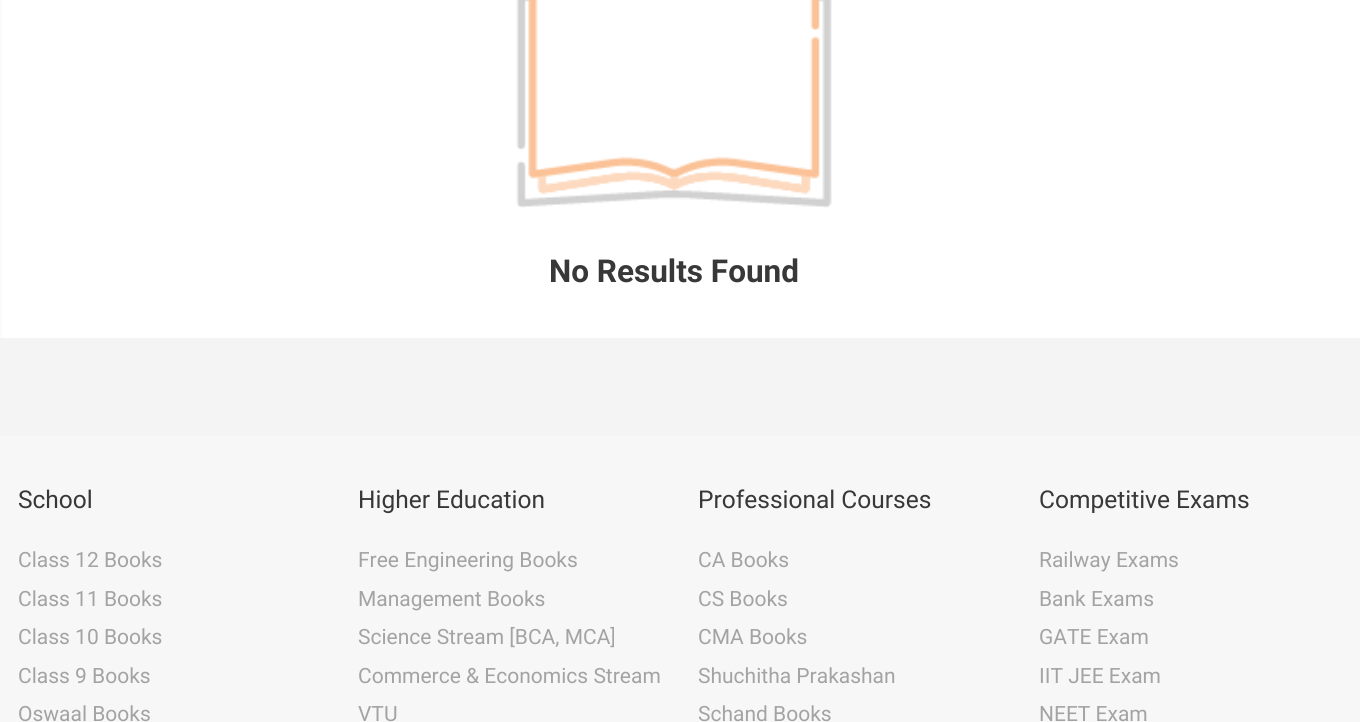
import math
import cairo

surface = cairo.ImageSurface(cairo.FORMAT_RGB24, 1360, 722)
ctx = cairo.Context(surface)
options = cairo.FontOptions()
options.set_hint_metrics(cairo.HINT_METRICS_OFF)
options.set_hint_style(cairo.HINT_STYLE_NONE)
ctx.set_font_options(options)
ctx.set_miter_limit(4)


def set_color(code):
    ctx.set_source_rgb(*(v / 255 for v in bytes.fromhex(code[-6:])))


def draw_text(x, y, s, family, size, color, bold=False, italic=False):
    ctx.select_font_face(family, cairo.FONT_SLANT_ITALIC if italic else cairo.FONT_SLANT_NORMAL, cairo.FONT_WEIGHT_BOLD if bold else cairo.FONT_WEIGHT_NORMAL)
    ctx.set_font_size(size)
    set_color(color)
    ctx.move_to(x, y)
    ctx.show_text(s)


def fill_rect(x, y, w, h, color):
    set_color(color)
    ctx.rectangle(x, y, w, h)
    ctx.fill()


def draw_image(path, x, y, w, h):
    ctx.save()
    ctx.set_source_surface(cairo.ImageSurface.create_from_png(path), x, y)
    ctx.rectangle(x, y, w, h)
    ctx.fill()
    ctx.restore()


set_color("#f4f4f4")
ctx.paint()
fill_rect(2, 0, 1358, 338, "#ffffff")
fill_rect(0, 0, 2, 338, "#fbfbfb")
draw_image("assets/img1.png", 516, 0, 316, 208)
draw_text(549, 282, "No Results Found", "Roboto", 31.5, "#383838", bold=True)
fill_rect(0, 436, 1360, 286, "#f7f7f7")
draw_text(18, 508, "School", "Roboto", 24.5, "#383838")
draw_text(18, 567, "Class 12 Books", "Roboto", 21, "#a3a3a3")
draw_text(18, 606, "Class 11 Books", "Roboto", 21, "#a3a3a3")
draw_text(18, 644, "Class 10 Books", "Roboto", 21, "#a3a3a3")
draw_text(18, 683, "Class 9 Books", "Roboto", 21, "#a3a3a3")
draw_text(18, 721, "Oswaal Books", "Roboto", 21, "#a3a3a3")
draw_text(358, 508, "Higher Education", "Roboto", 24.5, "#383838")
draw_text(358, 567, "Free Engineering Books", "Roboto", 21, "#a3a3a3")
draw_text(358, 606, "Management Books", "Roboto", 21, "#a3a3a3")
draw_text(358, 644, "Science Stream [BCA, MCA]", "Roboto", 21, "#a3a3a3")
draw_text(358, 683, "Commerce & Economics Stream", "Roboto", 21, "#a3a3a3")
draw_text(358, 721, "VTU", "Roboto", 21, "#a3a3a3")
draw_text(698, 508, "Professional Courses", "Roboto", 24.5, "#383838")
draw_text(698, 567, "CA Books", "Roboto", 21, "#a3a3a3")
draw_text(698, 606, "CS Books", "Roboto", 21, "#a3a3a3")
draw_text(698, 644, "CMA Books", "Roboto", 21, "#a3a3a3")
draw_text(698, 683, "Shuchitha Prakashan", "Roboto", 21, "#a3a3a3")
draw_text(698, 721, "Schand Books", "Roboto", 21, "#a3a3a3")
draw_text(1039, 508, "Competitive Exams", "Roboto", 24.5, "#383838")
draw_text(1039, 567, "Railway Exams", "Roboto", 21, "#a3a3a3")
draw_text(1039, 606, "Bank Exams", "Roboto", 21, "#a3a3a3")
draw_text(1039, 644, "GATE Exam", "Roboto", 21, "#a3a3a3")
draw_text(1039, 683, "IIT JEE Exam", "Roboto", 21, "#a3a3a3")
draw_text(1039, 721, "NEET Exam", "Roboto", 21, "#a3a3a3")
surface.write_to_png("output.png")
